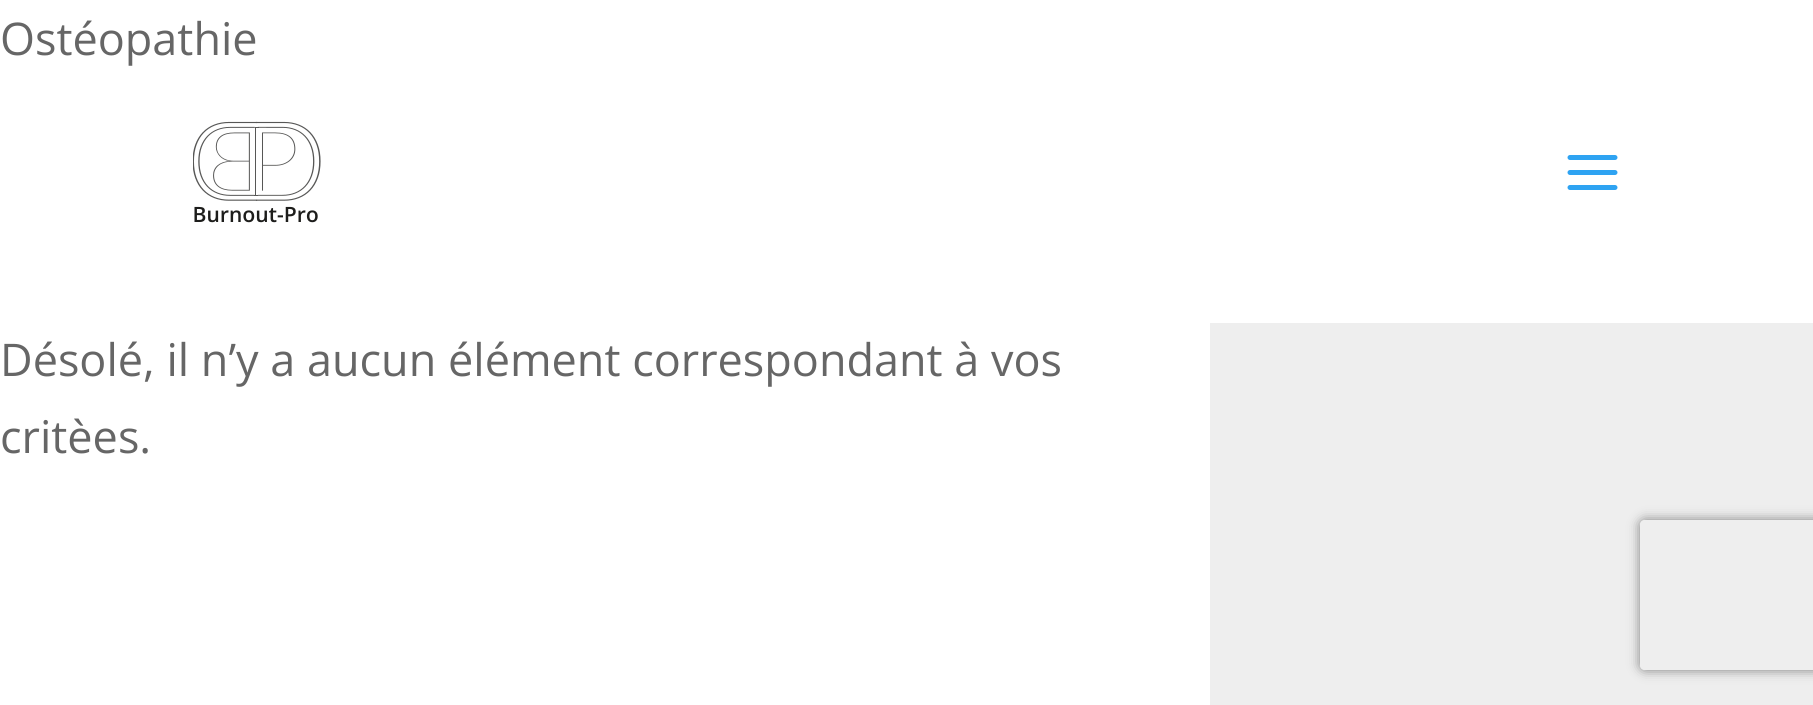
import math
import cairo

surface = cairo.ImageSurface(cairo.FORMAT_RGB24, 1813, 705)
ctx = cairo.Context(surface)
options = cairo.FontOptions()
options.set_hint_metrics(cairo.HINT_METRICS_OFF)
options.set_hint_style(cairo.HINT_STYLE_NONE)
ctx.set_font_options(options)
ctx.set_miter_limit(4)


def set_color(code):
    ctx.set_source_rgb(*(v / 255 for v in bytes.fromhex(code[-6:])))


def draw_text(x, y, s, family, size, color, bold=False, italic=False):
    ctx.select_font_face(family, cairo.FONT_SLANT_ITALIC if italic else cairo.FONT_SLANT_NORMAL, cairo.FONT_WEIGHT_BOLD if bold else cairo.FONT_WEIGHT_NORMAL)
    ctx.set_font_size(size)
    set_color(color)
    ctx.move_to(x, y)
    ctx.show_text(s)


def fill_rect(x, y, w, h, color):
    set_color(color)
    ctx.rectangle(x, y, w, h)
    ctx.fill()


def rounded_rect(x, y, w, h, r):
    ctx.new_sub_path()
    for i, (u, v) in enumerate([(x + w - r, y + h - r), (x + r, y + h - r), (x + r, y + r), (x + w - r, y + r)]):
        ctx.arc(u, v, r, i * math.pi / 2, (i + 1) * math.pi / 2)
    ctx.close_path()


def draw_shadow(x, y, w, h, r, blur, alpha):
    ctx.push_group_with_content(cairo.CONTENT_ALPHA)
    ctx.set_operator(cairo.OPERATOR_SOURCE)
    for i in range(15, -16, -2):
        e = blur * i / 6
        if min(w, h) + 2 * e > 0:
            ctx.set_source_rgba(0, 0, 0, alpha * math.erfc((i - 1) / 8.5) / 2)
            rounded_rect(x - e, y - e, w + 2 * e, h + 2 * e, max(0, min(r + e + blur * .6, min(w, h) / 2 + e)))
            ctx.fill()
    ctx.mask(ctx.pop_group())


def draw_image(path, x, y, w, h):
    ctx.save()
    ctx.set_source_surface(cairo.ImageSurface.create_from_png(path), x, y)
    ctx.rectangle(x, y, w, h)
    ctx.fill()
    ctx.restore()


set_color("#ffffff")
ctx.paint()
draw_text(0, 55, "Ostéopathie", "Open Sans", 45, "#666666")
draw_text(0, 376, "Désolé, il n’y a aucun élément correspondant à vos", "Open Sans", 45, "#666666")
draw_text(0, 453, "critèes.", "Open Sans", 45, "#666666")
fill_rect(1210, 323, 603, 382, "#eeeeee")
draw_image("assets/img1.png", 193, 121, 128, 102)
draw_image("assets/img2.png", 1567, 155, 51, 35)
ctx.save()
ctx.set_fill_rule(cairo.FILL_RULE_EVEN_ODD)
ctx.new_path()
ctx.move_to(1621, 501)
ctx.line_to(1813, 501)
ctx.line_to(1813, 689)
ctx.line_to(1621, 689)
ctx.close_path()
ctx.move_to(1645, 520)
ctx.line_to(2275, 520)
ctx.curve_to(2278, 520, 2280, 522, 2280, 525)
ctx.line_to(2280, 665)
ctx.curve_to(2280, 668, 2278, 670, 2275, 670)
ctx.line_to(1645, 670)
ctx.curve_to(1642, 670, 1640, 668, 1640, 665)
ctx.line_to(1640, 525)
ctx.curve_to(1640, 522, 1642, 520, 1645, 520)
ctx.close_path()
ctx.clip()
set_color("#808080")
draw_shadow(1640, 520, 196, 150, 5, 6, 1)
ctx.restore()
surface.write_to_png("output.png")
